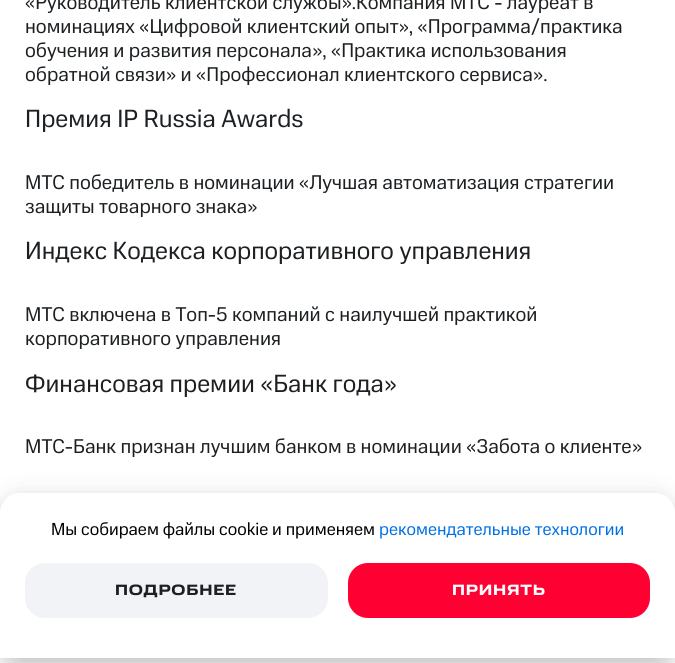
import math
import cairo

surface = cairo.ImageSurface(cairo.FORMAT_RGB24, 675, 663)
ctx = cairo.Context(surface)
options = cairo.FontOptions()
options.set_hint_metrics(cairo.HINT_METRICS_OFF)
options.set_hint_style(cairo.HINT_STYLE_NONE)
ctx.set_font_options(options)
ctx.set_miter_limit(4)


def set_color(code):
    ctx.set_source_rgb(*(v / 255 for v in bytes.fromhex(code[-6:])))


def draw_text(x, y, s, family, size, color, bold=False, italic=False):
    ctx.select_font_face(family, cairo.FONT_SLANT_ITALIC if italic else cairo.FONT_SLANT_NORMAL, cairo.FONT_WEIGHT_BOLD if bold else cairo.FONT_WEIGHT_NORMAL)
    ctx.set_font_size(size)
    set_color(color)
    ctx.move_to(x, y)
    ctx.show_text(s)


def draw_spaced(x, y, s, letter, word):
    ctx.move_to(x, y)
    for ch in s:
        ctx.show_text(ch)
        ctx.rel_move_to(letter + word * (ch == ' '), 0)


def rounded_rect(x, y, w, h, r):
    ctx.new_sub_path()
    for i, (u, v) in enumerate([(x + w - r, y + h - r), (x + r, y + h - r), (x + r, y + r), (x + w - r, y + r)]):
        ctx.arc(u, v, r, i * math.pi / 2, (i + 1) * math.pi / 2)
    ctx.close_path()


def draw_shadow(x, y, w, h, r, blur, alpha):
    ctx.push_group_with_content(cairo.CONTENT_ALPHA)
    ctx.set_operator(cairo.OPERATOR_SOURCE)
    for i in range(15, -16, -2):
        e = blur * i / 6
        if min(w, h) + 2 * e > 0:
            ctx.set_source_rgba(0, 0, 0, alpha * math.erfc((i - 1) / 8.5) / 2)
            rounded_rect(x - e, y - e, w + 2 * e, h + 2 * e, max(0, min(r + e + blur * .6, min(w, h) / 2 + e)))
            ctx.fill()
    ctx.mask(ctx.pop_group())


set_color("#ffffff")
ctx.paint()
draw_text(25, 9, "«Руководитель клиентской службы».Компания МТС - лауреат в", "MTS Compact", 20, "#1d2023")
draw_text(25, 33, "номинациях «Цифровой клиентский опыт», «Программа/практика", "MTS Compact", 20, "#1d2023")
draw_text(25, 57, "обучения и развития персонала», «Практика использования", "MTS Compact", 20, "#1d2023")
draw_text(25, 81, "обратной связи» и «Профессионал клиентского сервиса».", "MTS Compact", 20, "#1d2023")
draw_text(25, 127, "Премия IP Russia Awards", "MTS Compact", 25, "#1d2023")
draw_text(25, 189, "МТС победитель в номинации «Лучшая автоматизация стратегии", "MTS Compact", 20, "#1d2023")
draw_text(25, 213, "защиты товарного знака»", "MTS Compact", 20, "#1d2023")
draw_text(25, 259, "Индекс Кодекса корпоративного управления", "MTS Compact", 25, "#1d2023")
draw_text(25, 321, "МТС включена в Топ-5 компаний с наилучшей практикой", "MTS Compact", 20, "#1d2023")
draw_text(25, 345, "корпоративного управления", "MTS Compact", 20, "#1d2023")
draw_text(25, 392, "Финансовая премии «Банк года»", "MTS Compact", 25, "#1d2023")
draw_text(25, 453, "МТС-Банк признан лучшим банком в номинации «Забота о клиенте»", "MTS Compact", 20, "#1d2023")
set_color("#000000")
draw_shadow(0, 508, 675, 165, 20, 12.5, 0.14)
draw_shadow(0, 498, 675, 165, 20, 15, 0.12)
set_color("#ffffff")
ctx.new_path()
ctx.move_to(20, 493)
ctx.line_to(655, 493)
ctx.curve_to(666, 493, 675, 502, 675, 513)
ctx.line_to(675, 658)
ctx.line_to(0, 658)
ctx.line_to(0, 513)
ctx.curve_to(0, 502, 9, 493, 20, 493)
ctx.close_path()
ctx.fill()
draw_text(51, 535, "Мы собираем файлы cookie и применяем", "MTS Compact", 17.5, "#000000")
draw_text(379, 535, "рекомендательные технологии", "MTS Compact", 17.5, "#0070e5")
set_color("#f2f3f7")
rounded_rect(25, 563, 303, 55, 20)
ctx.fill()
ctx.select_font_face("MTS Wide", cairo.FONT_SLANT_NORMAL, cairo.FONT_WEIGHT_BOLD)
ctx.set_font_size(15)
set_color("#1d2023")
draw_spaced(115, 595, "ПОДРОБНЕЕ", 0.75, 0)
set_color("#ff0032")
rounded_rect(348, 563, 302, 55, 20)
ctx.fill()
set_color("#ffffff")
draw_spaced(452, 595, "ПРИНЯТЬ", 0.75, 0)
surface.write_to_png("output.png")
